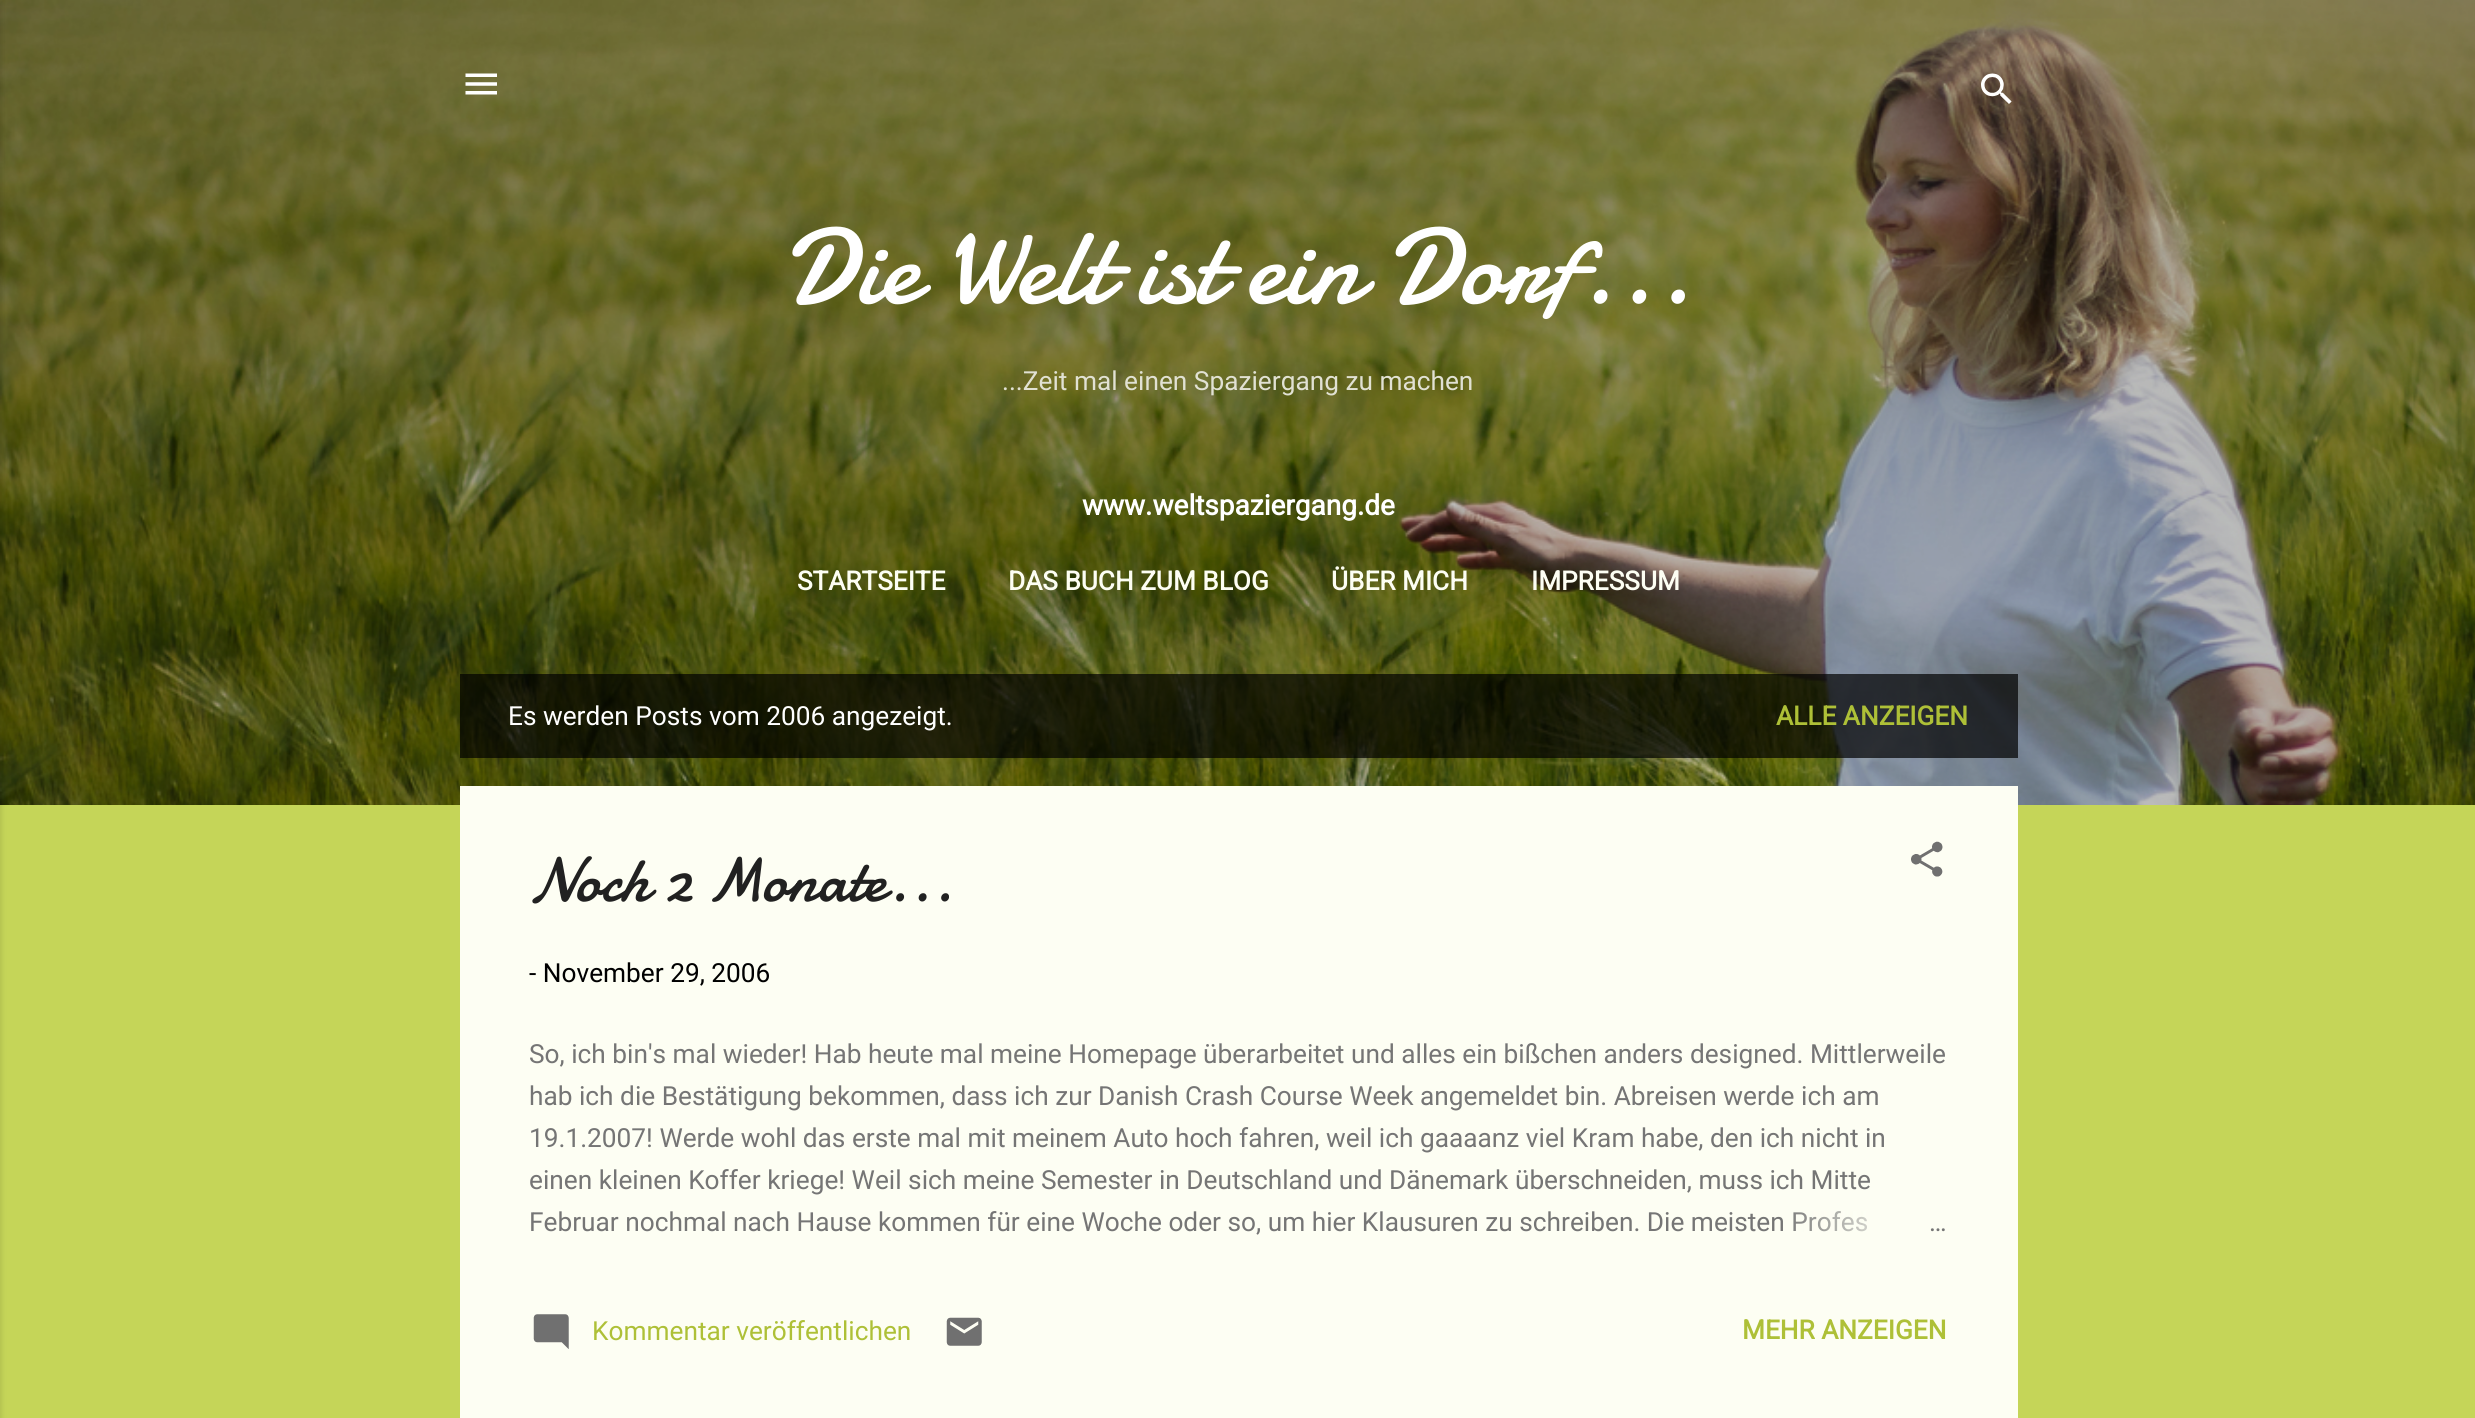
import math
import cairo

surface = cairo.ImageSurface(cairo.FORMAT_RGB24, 2475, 1418)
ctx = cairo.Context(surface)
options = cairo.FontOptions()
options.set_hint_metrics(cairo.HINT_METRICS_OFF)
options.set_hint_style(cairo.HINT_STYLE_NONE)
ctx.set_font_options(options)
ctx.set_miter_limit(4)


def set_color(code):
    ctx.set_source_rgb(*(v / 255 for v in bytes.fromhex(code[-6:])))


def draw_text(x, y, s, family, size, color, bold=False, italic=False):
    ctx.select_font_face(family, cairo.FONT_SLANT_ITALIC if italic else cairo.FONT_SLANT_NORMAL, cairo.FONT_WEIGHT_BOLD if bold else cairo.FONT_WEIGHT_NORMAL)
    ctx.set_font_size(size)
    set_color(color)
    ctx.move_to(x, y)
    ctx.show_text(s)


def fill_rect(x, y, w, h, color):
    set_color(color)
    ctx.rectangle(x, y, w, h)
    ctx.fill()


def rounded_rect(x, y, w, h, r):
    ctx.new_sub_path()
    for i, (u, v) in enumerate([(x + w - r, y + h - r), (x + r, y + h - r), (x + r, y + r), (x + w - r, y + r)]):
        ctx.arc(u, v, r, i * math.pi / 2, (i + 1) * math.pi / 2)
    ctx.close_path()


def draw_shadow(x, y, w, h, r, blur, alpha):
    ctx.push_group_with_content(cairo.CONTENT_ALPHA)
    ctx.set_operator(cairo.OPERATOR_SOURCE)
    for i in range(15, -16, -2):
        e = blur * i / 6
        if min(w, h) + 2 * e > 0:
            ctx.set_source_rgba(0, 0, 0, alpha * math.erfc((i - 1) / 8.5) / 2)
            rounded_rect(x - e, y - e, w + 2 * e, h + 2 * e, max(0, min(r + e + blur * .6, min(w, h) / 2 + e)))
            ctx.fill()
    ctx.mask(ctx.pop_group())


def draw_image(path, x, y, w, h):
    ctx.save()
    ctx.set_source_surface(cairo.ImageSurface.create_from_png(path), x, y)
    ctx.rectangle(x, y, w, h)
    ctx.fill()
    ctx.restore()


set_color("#c5d558")
ctx.paint()
draw_image("assets/img1.png", 0, 0, 2475, 805)
set_color("#000000")
draw_shadow(-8, 2, 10, 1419, 0, 2.5, 0.1)
draw_image("assets/img2.png", 465, 73, 32, 22)
draw_image("assets/img3.png", 1981, 73, 31, 31)
draw_text(783, 303, "Die Welt ist ein Dorf...", "Damion", 108.5, "#ffffff")
draw_text(1002, 390, "...Zeit mal einen Spaziergang zu machen", "Roboto", 26.25, "#e1e1d3")
draw_text(1082, 515, "www.weltspaziergang.de", "Roboto", 28, "#ffffff", bold=True)
draw_text(797, 590, "STARTSEITE", "Roboto", 26.25, "#fdfef3", bold=True)
draw_text(1008, 590, "DAS BUCH ZUM BLOG", "Roboto", 26.25, "#fdfef3", bold=True)
draw_text(1331, 590, "ÜBER MICH", "Roboto", 26.25, "#fdfef3", bold=True)
draw_text(1531, 590, "IMPRESSUM", "Roboto", 26.25, "#fdfef3", bold=True)
ctx.set_source_rgba(0, 0, 0, 0.7)
ctx.rectangle(460, 674, 1558, 84)
ctx.fill()
draw_text(508, 725, "Es werden Posts vom 2006 angezeigt.", "Roboto", 26.25, "#ffffff")
draw_text(1776, 725, "ALLE ANZEIGEN", "Roboto", 26.25, "#aec037", bold=True)
fill_rect(460, 786, 1558, 632, "#fdfef3")
draw_text(529, 901, "Noch 2 Monate...", "Damion", 63, "#212121")
draw_image("assets/img4.png", 1911, 841, 32, 36)
draw_text(529, 982, "- November 29, 2006", "Roboto", 26.25, "#000000")
draw_text(529, 1063, "So, ich bin's mal wieder! Hab heute mal meine Homepage überarbeitet und alles ein bißchen anders designed. Mittlerweile", "Roboto", 26.25, "#757575")
draw_text(529, 1105, "hab ich die Bestätigung bekommen, dass ich zur Danish Crash Course Week angemeldet bin. Abreisen werde ich am", "Roboto", 26.25, "#757575")
draw_text(529, 1147, "19.1.2007! Werde wohl das erste mal mit meinem Auto hoch fahren, weil ich gaaaanz viel Kram habe, den ich nicht in", "Roboto", 26.25, "#757575")
draw_text(529, 1189, "einen kleinen Koffer kriege! Weil sich meine Semester in Deutschland und Dänemark überschneiden, muss ich Mitte", "Roboto", 26.25, "#757575")
draw_text(529, 1231, "Februar nochmal nach Hause kommen für eine Woche oder so, um hier Klausuren zu schreiben. Die meisten Profes", "Roboto", 26.25, "#757575")
gradient = cairo.LinearGradient(1948, 1223, 1780, 1223)
gradient.add_color_stop_rgba(0, 0.992, 0.996, 0.953, 1)
gradient.add_color_stop_rgba(0.2, 0.992, 0.996, 0.953, 1)
gradient.add_color_stop_rgba(1, 0.992, 0.996, 0.953, 0)
ctx.set_source(gradient)
ctx.rectangle(1793, 1211, 75, 21)
ctx.fill()
draw_text(1929, 1231, "…", "Roboto", 26.25, "#757575")
draw_image("assets/img5.png", 533, 1314, 36, 35)
draw_text(592, 1340, "Kommentar veröffentlichen", "Roboto", 26.25, "#aec037")
draw_image("assets/img6.png", 946, 1317, 36, 29)
draw_text(1742, 1339, "MEHR ANZEIGEN", "Roboto", 26.25, "#aec037", bold=True)
surface.write_to_png("output.png")
